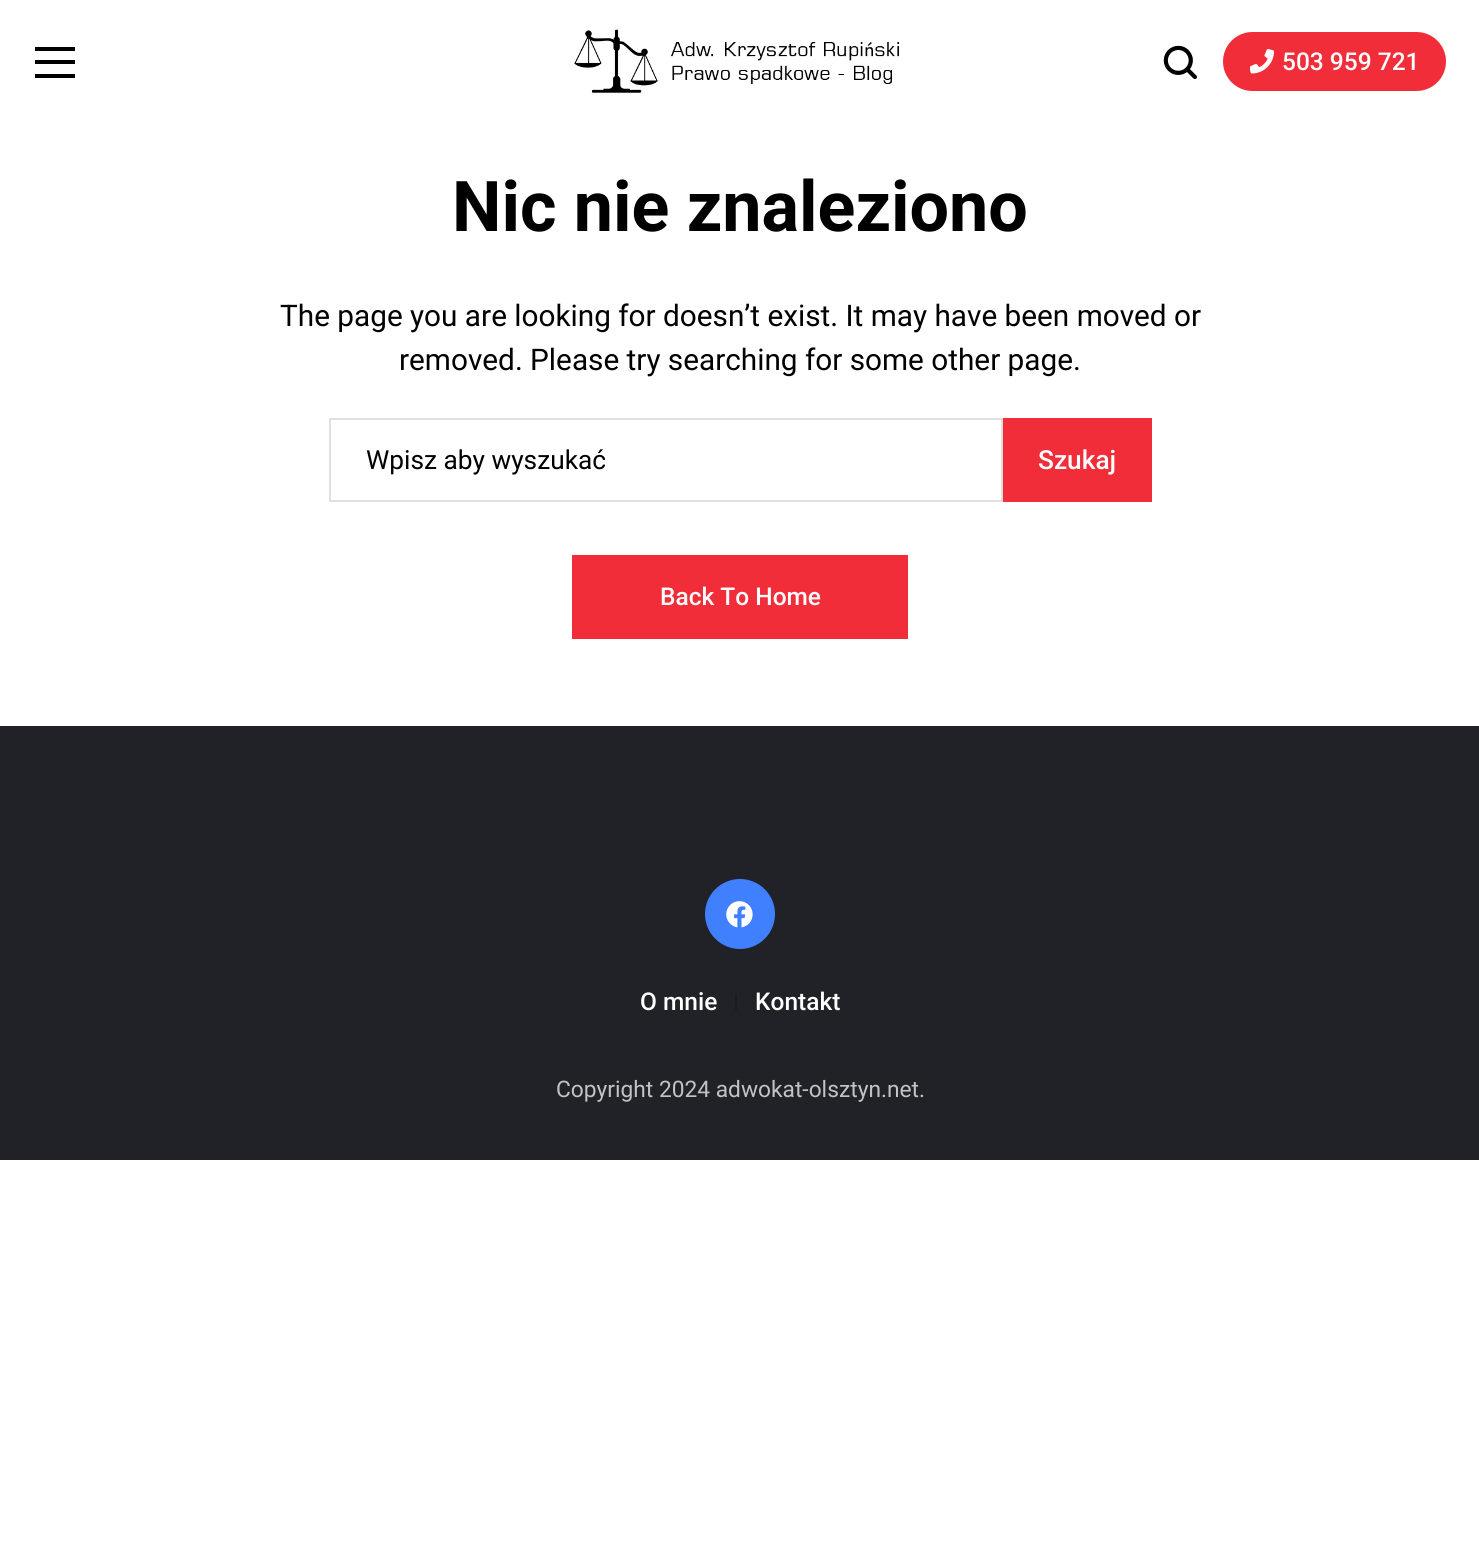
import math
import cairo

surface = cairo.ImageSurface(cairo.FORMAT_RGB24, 1479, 1552)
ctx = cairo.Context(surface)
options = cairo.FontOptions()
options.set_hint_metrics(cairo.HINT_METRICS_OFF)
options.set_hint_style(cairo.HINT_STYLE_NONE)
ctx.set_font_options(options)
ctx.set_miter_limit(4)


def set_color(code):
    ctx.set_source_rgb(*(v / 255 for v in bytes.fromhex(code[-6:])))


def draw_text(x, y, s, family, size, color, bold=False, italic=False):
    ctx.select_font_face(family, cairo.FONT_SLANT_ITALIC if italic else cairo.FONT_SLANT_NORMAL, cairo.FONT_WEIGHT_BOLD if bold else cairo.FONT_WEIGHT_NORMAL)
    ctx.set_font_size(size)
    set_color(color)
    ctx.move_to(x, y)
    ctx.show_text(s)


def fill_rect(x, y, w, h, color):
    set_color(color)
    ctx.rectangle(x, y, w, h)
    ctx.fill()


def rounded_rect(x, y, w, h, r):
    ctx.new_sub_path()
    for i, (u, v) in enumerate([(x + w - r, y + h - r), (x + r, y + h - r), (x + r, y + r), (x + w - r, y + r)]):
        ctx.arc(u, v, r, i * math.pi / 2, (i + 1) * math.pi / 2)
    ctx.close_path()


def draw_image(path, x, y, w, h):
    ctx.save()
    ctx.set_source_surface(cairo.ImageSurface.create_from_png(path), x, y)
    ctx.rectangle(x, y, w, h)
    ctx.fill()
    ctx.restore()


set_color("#ffffff")
ctx.paint()
fill_rect(35, 47, 40, 4, "#000000")
fill_rect(35, 60, 40, 4, "#000000")
fill_rect(35, 74, 40, 4, "#000000")
draw_image("assets/img1.png", 574, 29, 326, 64)
draw_image("assets/img2.png", 1163, 45, 34, 34)
set_color("#f22d3a")
rounded_rect(1223, 32, 223, 59, 29.5)
ctx.fill()
draw_image("assets/img3.png", 1250, 49, 24, 25)
draw_text(1282, 70, "503 959 721", "Roboto Medium", 24.5, "#ffffff")
draw_text(452, 231, "Nic nie znaleziono", "Roboto", 70, "#000000", bold=True)
draw_text(280, 326, "The page you are looking for doesn’t exist. It may have been moved or", "Roboto", 29.75, "#000000")
draw_text(399, 370, "removed. Please try searching for some other page.", "Roboto", 29.75, "#000000")
ctx.rectangle(330, 419, 672, 82)
set_color("#e0e0e0")
ctx.stroke()
draw_text(366, 469, "Wpisz aby wyszukać", "Roboto", 26.25, "#000000")
fill_rect(1003, 418, 149, 84, "#f22d3a")
draw_text(1038, 469, "Szukaj", "Roboto Medium", 26.25, "#ffffff")
fill_rect(572, 555, 336, 84, "#f22d3a")
draw_text(660, 605, "Back To Home", "Roboto Medium", 24.5, "#ffffff")
fill_rect(0, 726, 1479, 434, "#212227")
set_color("#4080ff")
ctx.new_path()
ctx.arc(740, 914, 35, 0, 2 * math.pi)
ctx.fill()
draw_image("assets/img4.png", 726, 901, 27, 27)
draw_text(640, 1010, "O mnie", "Roboto Medium", 24.5, "#ffffff")
fill_rect(735, 994, 2, 16, "#1b1c20")
draw_text(755, 1010, "Kontakt", "Roboto Medium", 24.5, "#ffffff")
draw_text(556, 1097, "Copyright 2024 adwokat-olsztyn.net.", "Roboto", 22.75, "#c3c3c5")
surface.write_to_png("output.png")
